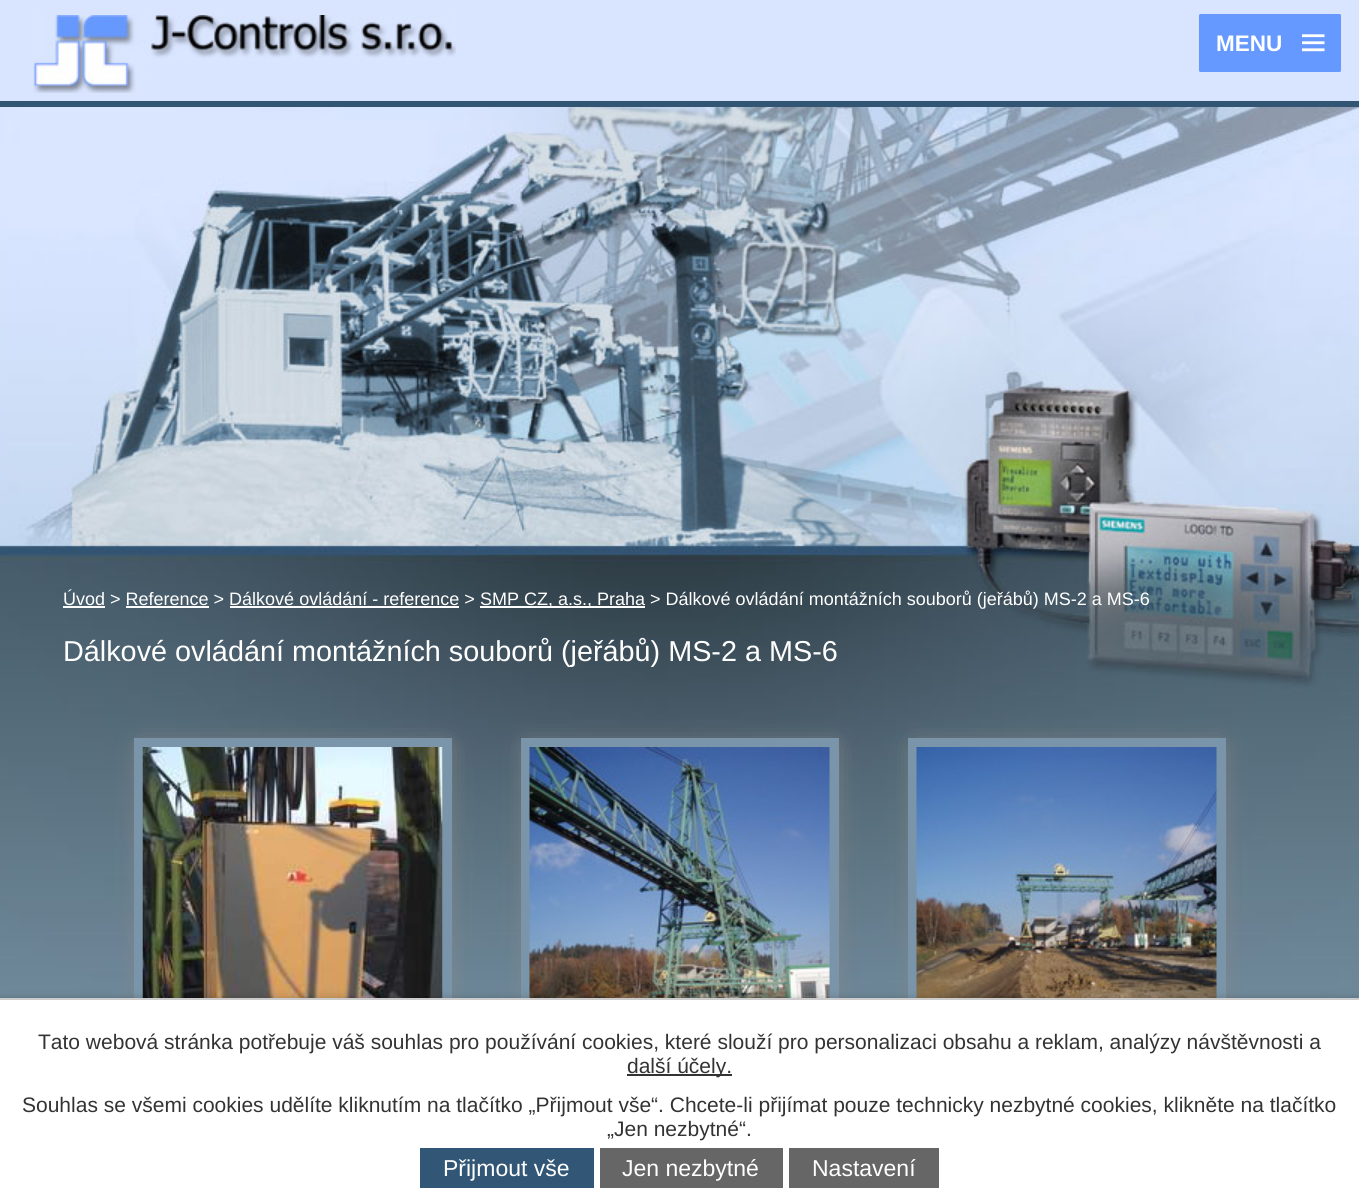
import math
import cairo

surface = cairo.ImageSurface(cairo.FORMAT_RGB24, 1359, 1197)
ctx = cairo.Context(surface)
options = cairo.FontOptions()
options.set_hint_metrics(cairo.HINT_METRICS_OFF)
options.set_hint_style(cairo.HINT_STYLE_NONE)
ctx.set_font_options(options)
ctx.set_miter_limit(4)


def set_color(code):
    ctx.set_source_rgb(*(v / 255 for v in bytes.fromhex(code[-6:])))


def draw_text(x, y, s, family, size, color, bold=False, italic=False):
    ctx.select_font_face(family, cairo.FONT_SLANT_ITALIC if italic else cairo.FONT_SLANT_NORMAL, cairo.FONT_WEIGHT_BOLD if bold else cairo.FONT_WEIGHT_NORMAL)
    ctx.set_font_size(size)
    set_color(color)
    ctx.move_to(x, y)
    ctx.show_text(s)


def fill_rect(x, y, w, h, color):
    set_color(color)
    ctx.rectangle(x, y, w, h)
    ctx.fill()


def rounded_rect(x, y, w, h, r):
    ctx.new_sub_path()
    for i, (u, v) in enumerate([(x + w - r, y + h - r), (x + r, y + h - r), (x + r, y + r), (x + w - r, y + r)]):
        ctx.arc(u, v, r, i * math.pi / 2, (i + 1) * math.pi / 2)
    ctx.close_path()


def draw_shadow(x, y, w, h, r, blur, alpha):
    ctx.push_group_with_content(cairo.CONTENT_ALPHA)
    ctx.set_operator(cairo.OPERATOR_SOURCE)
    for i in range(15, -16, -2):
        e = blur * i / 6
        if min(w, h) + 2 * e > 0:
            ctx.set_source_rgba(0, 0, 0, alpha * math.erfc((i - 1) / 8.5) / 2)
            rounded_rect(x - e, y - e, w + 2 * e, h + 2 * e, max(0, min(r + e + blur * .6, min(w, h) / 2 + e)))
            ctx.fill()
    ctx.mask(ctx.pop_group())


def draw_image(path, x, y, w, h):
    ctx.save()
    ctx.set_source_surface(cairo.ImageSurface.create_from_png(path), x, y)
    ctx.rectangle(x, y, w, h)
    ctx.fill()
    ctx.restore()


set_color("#ffffff")
ctx.paint()
draw_image("assets/img1.png", 0, 107, 1359, 891)
fill_rect(0, 0, 1359, 101, "#d9e5ff")
fill_rect(0, 101, 1359, 6, "#335574")
draw_image("assets/img2.png", 33, 15, 423, 78)
set_color("#6599ff")
rounded_rect(1199, 14, 142, 58, 1.5)
ctx.fill()
draw_text(1216, 51, "MENU", "Liberation Sans", 22.5, "#ffffff", bold=True)
draw_image("assets/img3.png", 1302, 34, 23, 18)
draw_text(63, 605, "Úvod > Reference > Dálkové ovládání - reference >", "Liberation Sans", 18, "#ffffff")
fill_rect(63, 606, 42, 2, "#ffffff")
fill_rect(480, 606, 165, 2, "#ffffff")
draw_text(480, 605, "SMP CZ, a.s., Praha > Dálkové ovládání montážních souborů (jeřábů) MS-2 a MS-6", "Liberation Sans", 18, "#ffffff")
fill_rect(126, 606, 83, 2, "#ffffff")
fill_rect(230, 606, 229, 2, "#ffffff")
draw_text(63, 661, "Dálkové ovládání montážních souborů (jeřábů) MS-2 a MS-6", "Liberation Sans", 28.8, "#ffffff")
set_color("#888888")
draw_shadow(141, 746, 306, 306, 0, 12, 1)
fill_rect(134, 738, 318, 260, "#7a95a9")
draw_image("assets/img4.png", 142, 747, 301, 251)
set_color("#888888")
draw_shadow(528, 746, 306, 306, 0, 12, 1)
fill_rect(521, 738, 318, 260, "#7a95a9")
draw_image("assets/img5.png", 529, 747, 301, 251)
set_color("#888888")
draw_shadow(915, 746, 306, 306, 0, 12, 1)
fill_rect(908, 738, 318, 260, "#7a95a9")
draw_image("assets/img6.png", 916, 747, 301, 251)
set_color("#000000")
draw_shadow(0, 998, 1359, 199, 0, 4, 0.2)
fill_rect(0, 1000, 1359, 197, "#ffffff")
fill_rect(0, 998, 1359, 2, "#cccccc")
draw_text(38, 1049, "Tato webová stránka potřebuje váš souhlas pro používání cookies, které slouží pro personalizaci obsahu a reklam, analýzy návštěvnosti a", "Liberation Sans", 21, "#333333")
fill_rect(627, 1074, 105, 2, "#333333")
draw_text(627, 1073, "další účely.", "Liberation Sans", 21, "#333333")
draw_text(22, 1112, "Souhlas se všemi cookies udělíte kliknutím na tlačítko „Přijmout vše“. Chcete-li přijímat pouze technicky nezbytné cookies, klikněte na tlačítko", "Liberation Sans", 21, "#333333")
draw_text(607, 1136, "„Jen nezbytné“.", "Liberation Sans", 21, "#333333")
fill_rect(420, 1148, 174, 40, "#325676")
draw_text(443, 1176, "Přijmout vše", "Liberation Sans", 23, "#ffffff")
fill_rect(600, 1148, 183, 40, "#666666")
draw_text(622, 1176, "Jen nezbytné", "Liberation Sans", 23, "#ffffff")
fill_rect(789, 1148, 150, 40, "#666666")
draw_text(812, 1176, "Nastavení", "Liberation Sans", 23, "#ffffff")
surface.write_to_png("output.png")
